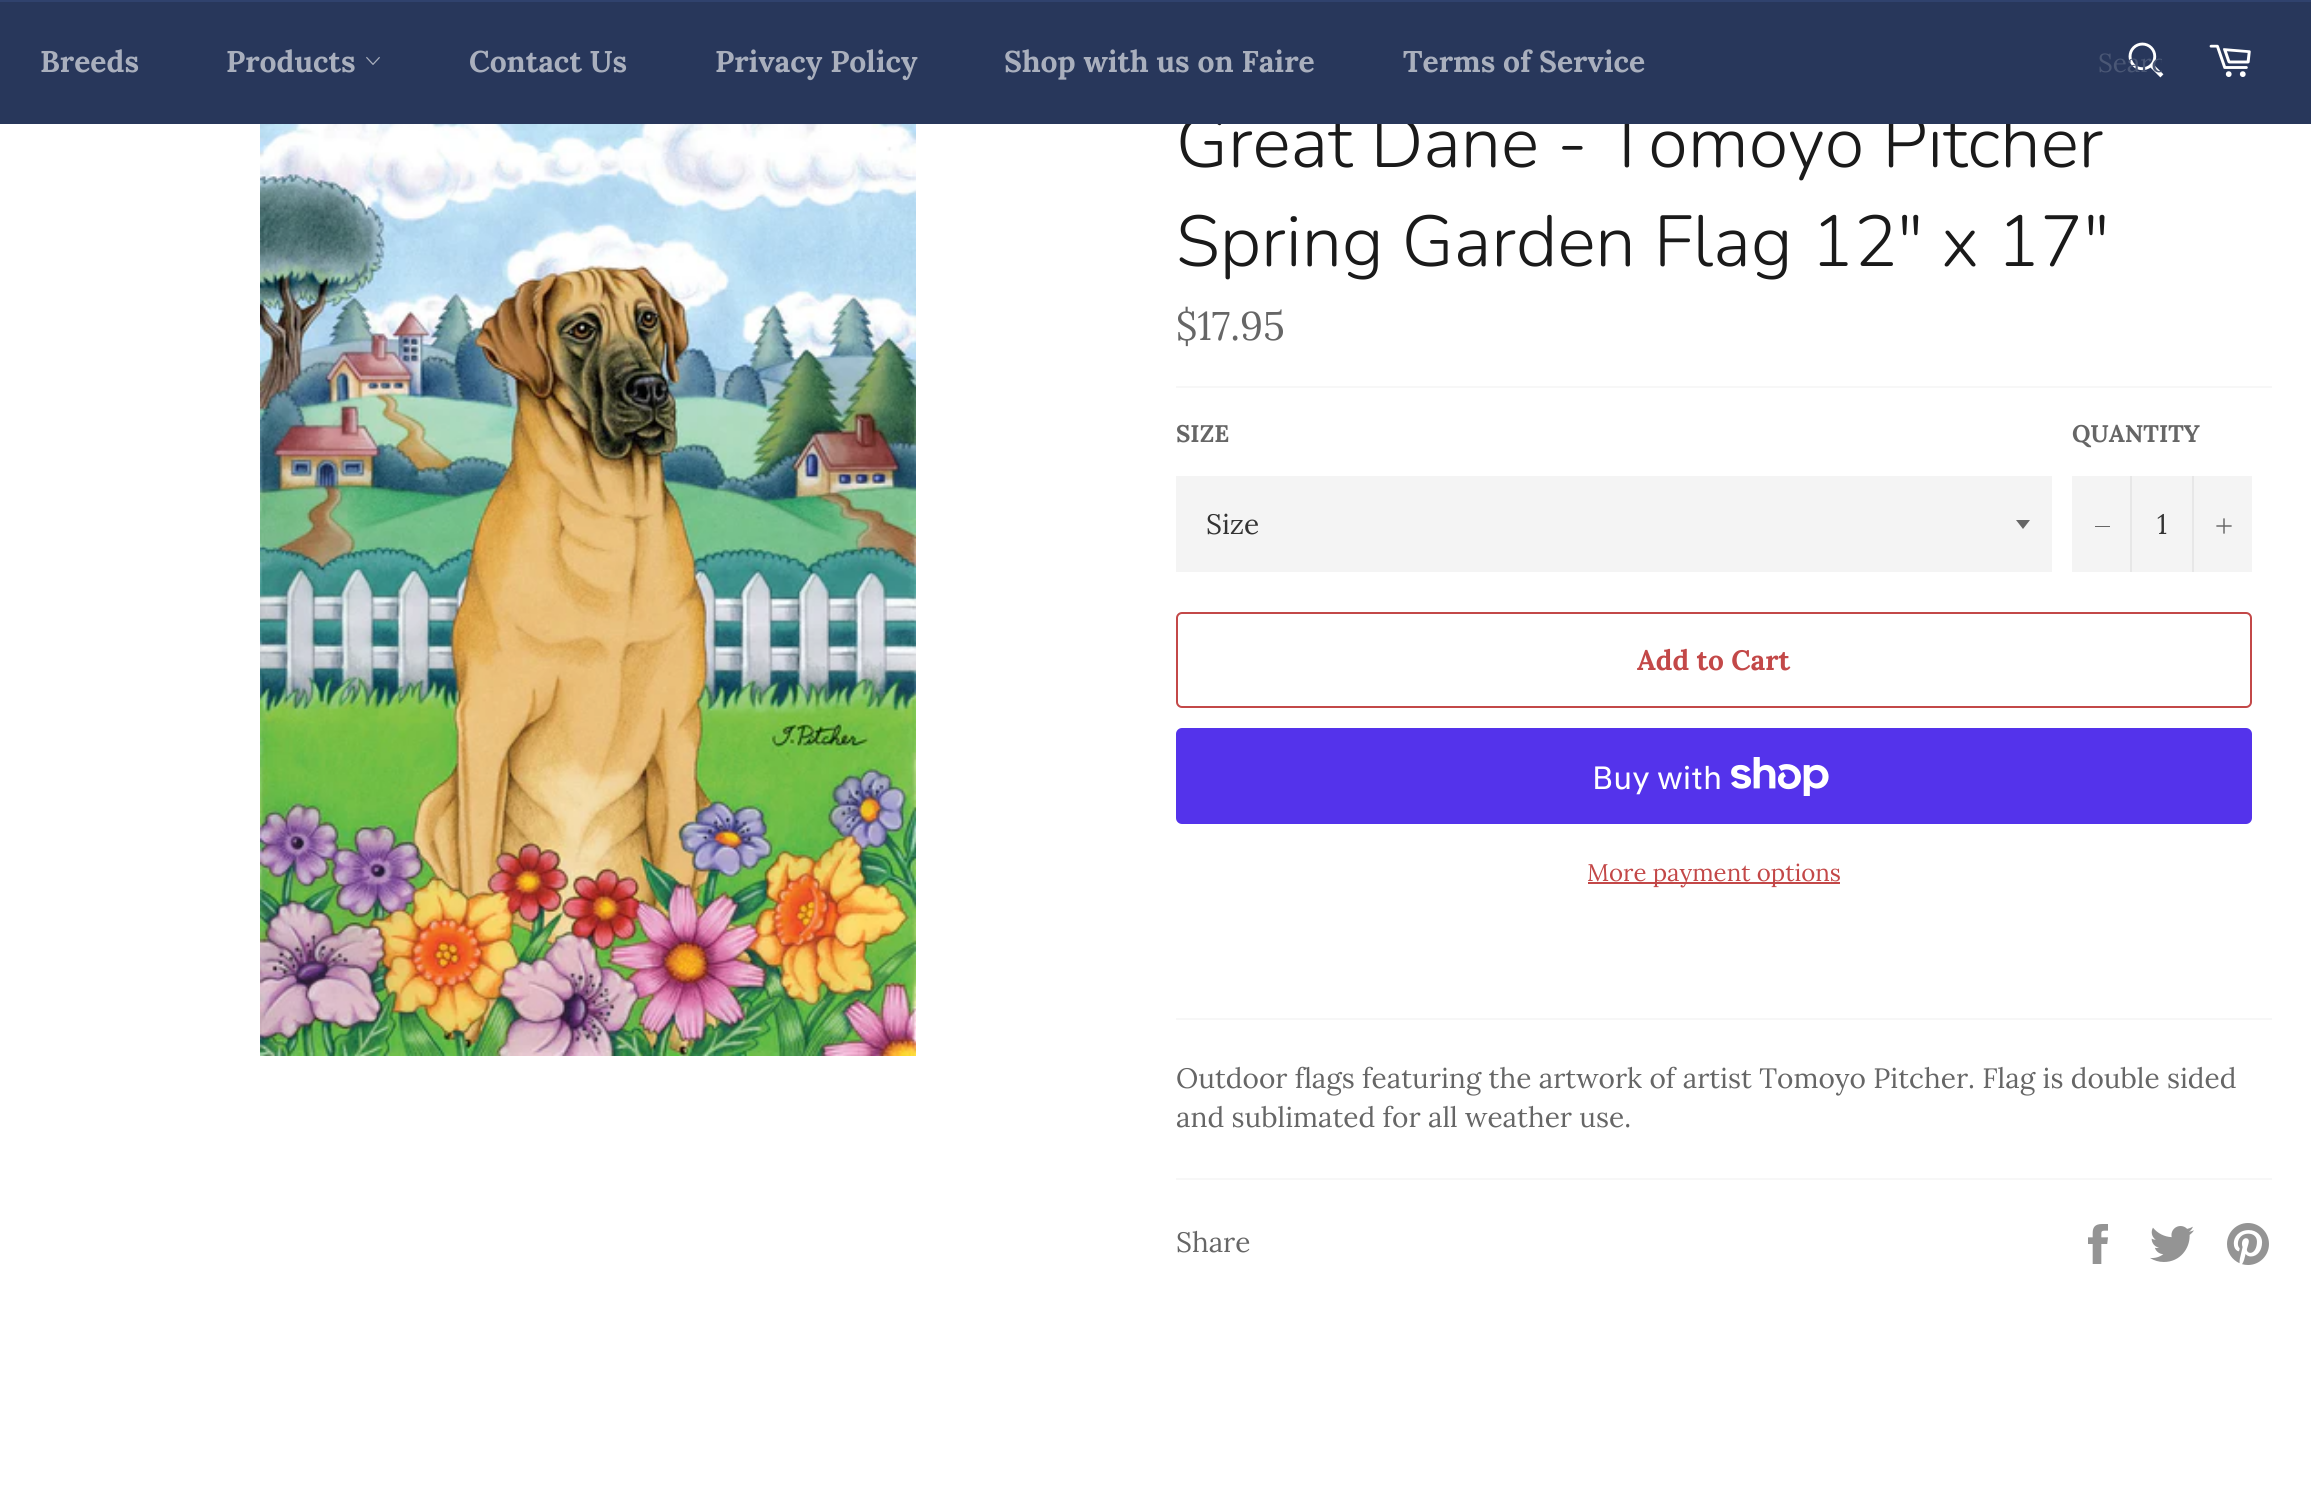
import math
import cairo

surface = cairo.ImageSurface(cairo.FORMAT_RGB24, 2311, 1506)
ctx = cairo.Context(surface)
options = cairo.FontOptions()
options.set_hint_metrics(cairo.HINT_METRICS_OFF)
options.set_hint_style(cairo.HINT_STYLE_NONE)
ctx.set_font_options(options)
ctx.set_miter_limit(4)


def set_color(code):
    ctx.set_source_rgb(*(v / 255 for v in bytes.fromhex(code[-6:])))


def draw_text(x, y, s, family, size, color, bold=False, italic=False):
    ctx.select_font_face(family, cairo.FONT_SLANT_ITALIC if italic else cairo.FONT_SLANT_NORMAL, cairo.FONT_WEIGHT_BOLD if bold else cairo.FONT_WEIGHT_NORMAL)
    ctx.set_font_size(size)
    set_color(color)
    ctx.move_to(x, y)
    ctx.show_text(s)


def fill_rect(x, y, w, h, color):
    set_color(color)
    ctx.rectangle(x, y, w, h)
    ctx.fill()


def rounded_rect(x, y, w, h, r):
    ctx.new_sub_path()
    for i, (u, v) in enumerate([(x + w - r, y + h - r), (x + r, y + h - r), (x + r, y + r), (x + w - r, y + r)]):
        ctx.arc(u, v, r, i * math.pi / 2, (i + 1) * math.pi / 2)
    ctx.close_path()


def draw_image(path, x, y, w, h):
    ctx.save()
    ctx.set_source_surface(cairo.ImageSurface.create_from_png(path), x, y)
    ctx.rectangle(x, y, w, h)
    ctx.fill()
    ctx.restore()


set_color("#ffffff")
ctx.paint()
draw_text(1176, 167, "Great Dane - Tomoyo Pitcher", "Nunito Light", 72, "#1a1a1a")
fill_rect(0, 2, 2311, 122, "#28375b")
fill_rect(0, 0, 2311, 2, "#30426d")
draw_text(40, 72, "Breeds", "Lora", 30, "#a9afbd", bold=True)
draw_text(226, 72, "Products", "Lora", 30, "#a9afbd", bold=True)
draw_image("assets/img1.png", 366, 56, 14, 9)
draw_text(469, 72, "Contact Us", "Lora", 30, "#a9afbd", bold=True)
draw_text(715, 72, "Privacy Policy", "Lora", 30, "#a9afbd", bold=True)
draw_text(1004, 72, "Shop with us on Faire", "Lora", 30, "#a9afbd", bold=True)
draw_text(1403, 72, "Terms of Service", "Lora", 30, "#a9afbd", bold=True)
draw_image("assets/img2.png", 2128, 42, 36, 36)
ctx.save()
ctx.rectangle(2098, 46, 64, 34)
ctx.clip()
draw_text(2098, 72, "Searc", "Lora", 26, "#4a5775")
ctx.restore()
draw_image("assets/img3.png", 2209, 44, 42, 33)
draw_image("assets/img4.png", 260, 124, 656, 932)
draw_text(1176, 266, "Spring Garden Flag 12\" x 17\"", "Nunito Light", 72, "#1a1a1a")
draw_text(1176, 340, "$17.95", "Lora", 40, "#666666")
fill_rect(1176, 386, 1096, 2, "#f7f7f7")
draw_text(1176, 442, "SIZE", "Lora", 24, "#666666", bold=True)
fill_rect(1176, 476, 876, 96, "#f4f4f4")
set_color("#666666")
ctx.new_path()
ctx.move_to(2016, 520)
ctx.line_to(2023, 529)
ctx.line_to(2030, 520)
ctx.close_path()
ctx.fill()
draw_text(1206, 534, "Size", "Lora", 28, "#333333")
draw_text(2072, 442, "QUANTITY", "Lora", 24, "#666666", bold=True)
fill_rect(2072, 476, 180, 96, "#f4f4f4")
fill_rect(2130, 476, 2, 96, "#e7e7e7")
fill_rect(2095, 526, 15, 1, "#666666")
draw_text(2157, 534, "1", "Lora", 28, "#333333")
fill_rect(2192, 476, 2, 96, "#e7e7e7")
draw_image("assets/img5.png", 2216, 518, 16, 16)
rounded_rect(1177, 613, 1074, 94, 5)
set_color("#c34848")
ctx.stroke()
draw_text(1637, 670, "Add to Cart", "Lora", 28, "#c34848", bold=True)
set_color("#5433eb")
rounded_rect(1176, 728, 1076, 96, 6)
ctx.fill()
draw_text(1592, 789, "Buy with", "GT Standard", 32, "#ffffff")
draw_image("assets/img6.png", 1731, 757, 98, 39)
fill_rect(1588, 882, 252, 2, "#c34848")
draw_text(1587, 881, "More payment options", "Lora", 24, "#c34848")
fill_rect(1176, 1018, 1096, 2, "#f7f7f7")
draw_text(1176, 1088, "Outdoor flags featuring the artwork of artist Tomoyo Pitcher. Flag is double sided", "Lora", 28, "#666666")
draw_text(1176, 1127, "and sublimated for all weather use.", "Lora", 28, "#666666")
fill_rect(1176, 1178, 1096, 2, "#f7f7f7")
draw_text(1176, 1252, "Share", "Lora", 28, "#666666")
draw_image("assets/img7.png", 2088, 1224, 20, 40)
draw_image("assets/img8.png", 2150, 1226, 44, 36)
draw_image("assets/img9.png", 2227, 1223, 42, 42)
surface.write_to_png("output.png")
